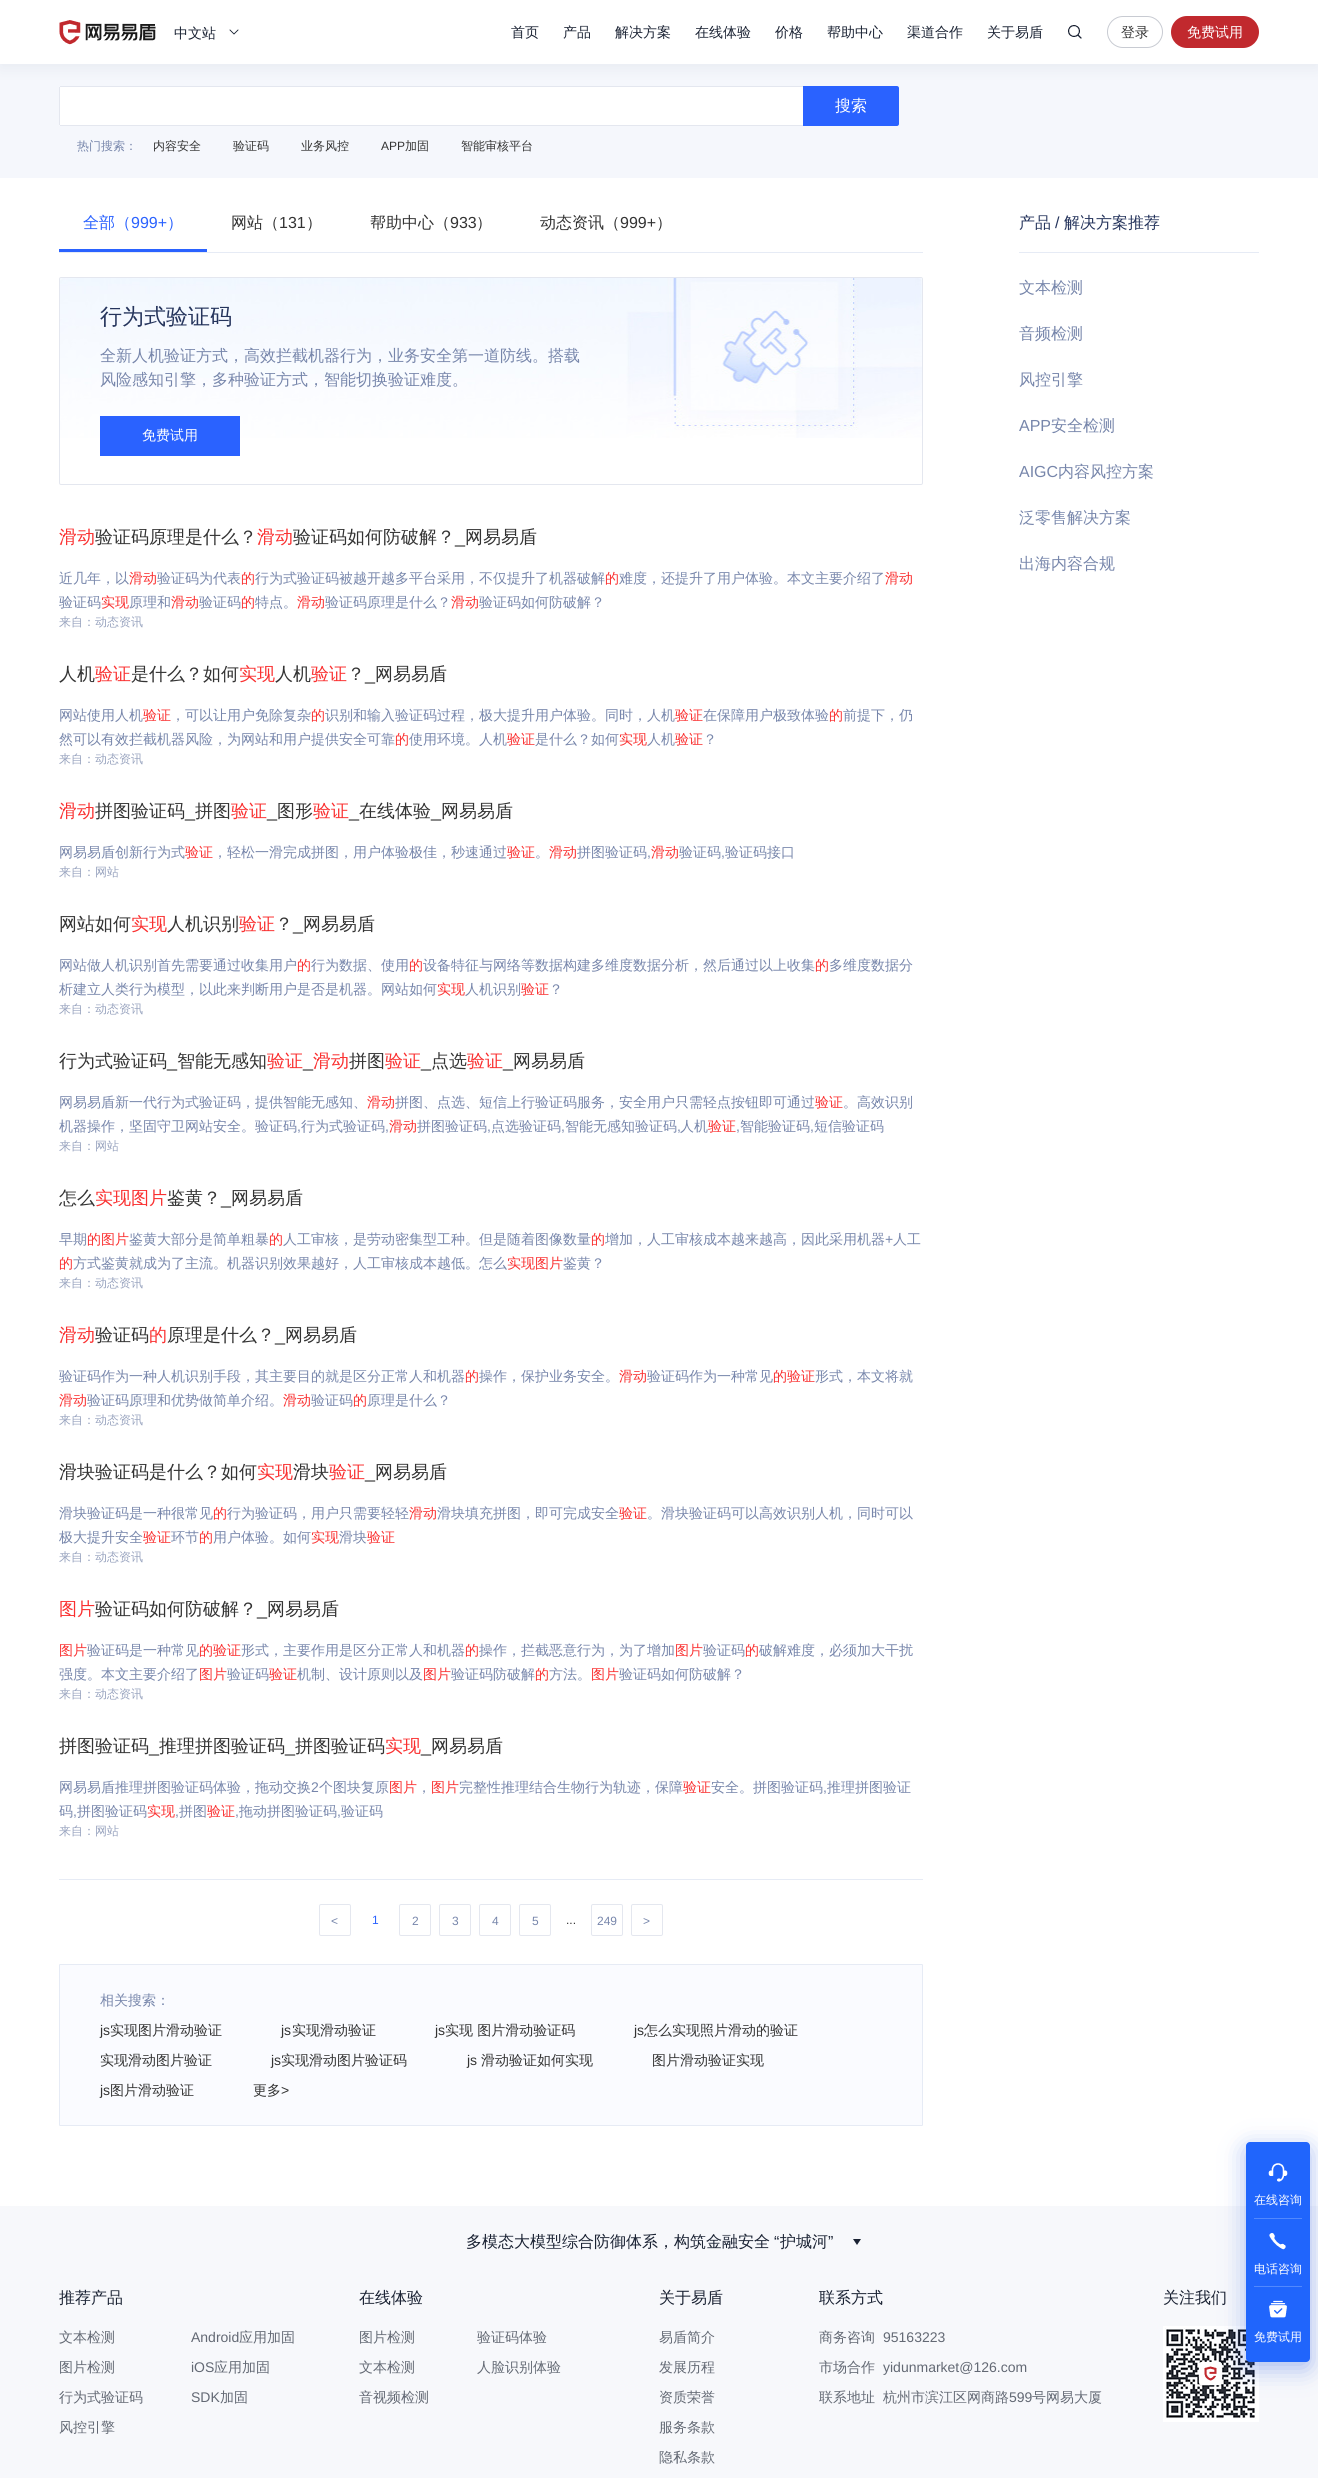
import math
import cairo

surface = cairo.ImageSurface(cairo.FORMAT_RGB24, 1318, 2478)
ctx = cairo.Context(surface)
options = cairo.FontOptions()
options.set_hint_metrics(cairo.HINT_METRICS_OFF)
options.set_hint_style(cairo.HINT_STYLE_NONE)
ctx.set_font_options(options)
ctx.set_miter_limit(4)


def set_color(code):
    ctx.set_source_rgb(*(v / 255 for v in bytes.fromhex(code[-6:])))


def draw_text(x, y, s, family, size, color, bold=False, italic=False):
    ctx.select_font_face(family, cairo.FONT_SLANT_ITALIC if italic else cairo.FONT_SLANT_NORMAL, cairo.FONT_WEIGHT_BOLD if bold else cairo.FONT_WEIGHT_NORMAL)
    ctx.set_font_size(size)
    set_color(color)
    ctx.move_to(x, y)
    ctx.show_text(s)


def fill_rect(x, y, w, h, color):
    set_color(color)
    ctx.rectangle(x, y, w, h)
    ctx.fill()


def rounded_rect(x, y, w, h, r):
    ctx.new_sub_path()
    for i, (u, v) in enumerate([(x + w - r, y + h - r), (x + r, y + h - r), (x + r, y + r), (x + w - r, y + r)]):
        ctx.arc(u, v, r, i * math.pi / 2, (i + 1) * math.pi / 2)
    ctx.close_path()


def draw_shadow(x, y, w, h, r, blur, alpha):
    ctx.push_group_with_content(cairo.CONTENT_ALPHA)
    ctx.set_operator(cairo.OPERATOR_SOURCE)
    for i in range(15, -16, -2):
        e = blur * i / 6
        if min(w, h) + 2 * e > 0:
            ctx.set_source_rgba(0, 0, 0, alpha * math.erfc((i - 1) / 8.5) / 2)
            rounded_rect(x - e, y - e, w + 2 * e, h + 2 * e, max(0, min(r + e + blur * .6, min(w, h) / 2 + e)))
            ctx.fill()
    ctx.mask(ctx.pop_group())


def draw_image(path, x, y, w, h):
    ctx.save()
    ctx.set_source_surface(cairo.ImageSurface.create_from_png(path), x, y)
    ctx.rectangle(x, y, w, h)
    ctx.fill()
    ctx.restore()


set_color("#ffffff")
ctx.paint()
fill_rect(0, 64, 1318, 114, "#f5f7fc")
set_color("#ffffff")
ctx.new_path()
ctx.move_to(61, 86)
ctx.line_to(803, 86)
ctx.line_to(803, 126)
ctx.line_to(61, 126)
ctx.curve_to(60, 126, 59, 125, 59, 124)
ctx.line_to(59, 88)
ctx.curve_to(59, 87, 60, 86, 61, 86)
ctx.close_path()
ctx.fill()
fill_rect(60, 86, 743, 1, "#e4e7ef")
fill_rect(59, 87, 1, 38, "#e4e7ef")
set_color("#2a62ff")
ctx.new_path()
ctx.move_to(803, 86)
ctx.line_to(897, 86)
ctx.curve_to(898, 86, 899, 87, 899, 88)
ctx.line_to(899, 124)
ctx.curve_to(899, 125, 898, 126, 897, 126)
ctx.line_to(803, 126)
ctx.close_path()
ctx.fill()
set_color("#9ca8b9")
draw_shadow(0, 4, 1318, 64, 0, 8, 0.16)
fill_rect(0, 0, 1318, 64, "#ffffff")
draw_image("assets/img1.png", 59, 20, 97, 25)
draw_text(174, 38, "中文站", "WenQuanYi Zen Hei Medium", 14, "#1a2233")
draw_image("assets/img2.png", 229, 29, 10, 6)
draw_text(511, 37, "首页", "WenQuanYi Zen Hei Medium", 14, "#1a2233")
draw_text(563, 37, "产品", "WenQuanYi Zen Hei Medium", 14, "#1a2233")
draw_text(615, 37, "解决方案", "WenQuanYi Zen Hei Medium", 14, "#1a2233")
draw_text(695, 37, "在线体验", "WenQuanYi Zen Hei Medium", 14, "#1a2233")
draw_text(775, 37, "价格", "WenQuanYi Zen Hei Medium", 14, "#1a2233")
draw_text(827, 37, "帮助中心", "WenQuanYi Zen Hei Medium", 14, "#1a2233")
draw_text(907, 37, "渠道合作", "WenQuanYi Zen Hei Medium", 14, "#1a2233")
draw_text(987, 37, "关于易盾", "WenQuanYi Zen Hei Medium", 14, "#1a2233")
draw_image("assets/img3.png", 1068, 25, 14, 14)
rounded_rect(1107.5, 16.5, 55, 31, 15.5)
set_color("#c8cbd2")
ctx.set_line_width(1)
ctx.stroke()
draw_text(1121, 37, "登录", "WenQuanYi Zen Hei Medium", 14, "#333333")
set_color("#c1292e")
rounded_rect(1171, 16, 88, 32, 16)
ctx.fill()
draw_text(1187, 37, "免费试用", "WenQuanYi Zen Hei Medium", 14, "#ffffff")
fill_rect(60, 125, 743, 1, "#e4e7ef")
draw_text(835, 111, "搜索", "WenQuanYi Zen Hei Medium", 16, "#ffffff")
draw_text(77, 150, "热门搜索：", "WenQuanYi Zen Hei Medium", 12, "#7786ab")
draw_text(153, 150, "内容安全", "WenQuanYi Zen Hei Medium", 12, "#333333")
draw_text(233, 150, "验证码", "WenQuanYi Zen Hei Medium", 12, "#333333")
draw_text(301, 150, "业务风控", "WenQuanYi Zen Hei Medium", 12, "#333333")
draw_text(381, 150, "APP", "Liberation Sans", 12, "#333333")
draw_text(405, 150, "加固", "WenQuanYi Zen Hei Medium", 12, "#333333")
draw_text(461, 150, "智能审核平台", "WenQuanYi Zen Hei Medium", 12, "#333333")
fill_rect(59, 252, 864, 1, "#e6ebf5")
draw_text(83, 228, "全部（", "WenQuanYi Zen Hei Medium", 16, "#2a62ff")
draw_text(131, 228, "999+", "Liberation Sans", 16, "#2a62ff")
draw_text(167, 228, "）", "WenQuanYi Zen Hei Medium", 16, "#2a62ff")
fill_rect(59, 249, 148, 3, "#2a62ff")
draw_text(231, 228, "网站（", "WenQuanYi Zen Hei Medium", 16, "#333333")
draw_text(279, 228, "131", "Liberation Sans", 16, "#333333")
draw_text(306, 228, "）", "WenQuanYi Zen Hei Medium", 16, "#333333")
draw_text(370, 228, "帮助中心（", "WenQuanYi Zen Hei Medium", 16, "#333333")
draw_text(450, 228, "933", "Liberation Sans", 16, "#333333")
draw_text(476, 228, "）", "WenQuanYi Zen Hei Medium", 16, "#333333")
draw_text(540, 228, "动态资讯（", "WenQuanYi Zen Hei Medium", 16, "#333333")
draw_text(620, 228, "999+", "Liberation Sans", 16, "#333333")
draw_text(656, 228, "）", "WenQuanYi Zen Hei Medium", 16, "#333333")
draw_image("assets/img4.png", 60, 278, 862, 160)
rounded_rect(59.5, 277.5, 863, 207, 1.5)
set_color("#e4e7ef")
ctx.stroke()
draw_text(100, 324, "行为式验证码", "WenQuanYi Zen Hei Medium", 22, "#25345c")
draw_text(100, 361, "全新人机验证方式，高效拦截机器行为，业务安全第一道防线。搭载", "WenQuanYi Zen Hei Medium", 16, "#7786ab")
draw_text(100, 385, "风险感知引擎，多种验证方式，智能切换验证难度。", "WenQuanYi Zen Hei Medium", 16, "#7786ab")
fill_rect(100, 416, 140, 40, "#2a62ff")
draw_text(142, 440, "免费试用", "WenQuanYi Zen Hei Medium", 14, "#ffffff")
draw_text(59, 543, "滑动", "WenQuanYi Zen Hei Medium", 18, "#fa3030")
draw_text(95, 543, "验证码原理是什么？", "WenQuanYi Zen Hei Medium", 18, "#333333")
draw_text(257, 543, "滑动", "WenQuanYi Zen Hei Medium", 18, "#fa3030")
draw_text(293, 543, "验证码如何防破解？", "WenQuanYi Zen Hei Medium", 18, "#333333")
draw_text(455, 543, "_", "Liberation Sans", 18, "#333333")
draw_text(465, 543, "网易易盾", "WenQuanYi Zen Hei Medium", 18, "#333333")
draw_text(59, 583, "近几年，以", "WenQuanYi Zen Hei Medium", 14, "#7786ab")
draw_text(129, 583, "滑动", "WenQuanYi Zen Hei Medium", 14, "#fa3030")
draw_text(157, 583, "验证码为代表", "WenQuanYi Zen Hei Medium", 14, "#7786ab")
draw_text(241, 583, "的", "WenQuanYi Zen Hei Medium", 14, "#fa3030")
draw_text(255, 583, "行为式验证码被越开越多平台采用，不仅提升了机器破解", "WenQuanYi Zen Hei Medium", 14, "#7786ab")
draw_text(605, 583, "的", "WenQuanYi Zen Hei Medium", 14, "#fa3030")
draw_text(619, 583, "难度，还提升了用户体验。本文主要介绍了", "WenQuanYi Zen Hei Medium", 14, "#7786ab")
draw_text(885, 583, "滑动", "WenQuanYi Zen Hei Medium", 14, "#fa3030")
draw_text(59, 607, "验证码", "WenQuanYi Zen Hei Medium", 14, "#7786ab")
draw_text(101, 607, "实现", "WenQuanYi Zen Hei Medium", 14, "#fa3030")
draw_text(129, 607, "原理和", "WenQuanYi Zen Hei Medium", 14, "#7786ab")
draw_text(171, 607, "滑动", "WenQuanYi Zen Hei Medium", 14, "#fa3030")
draw_text(199, 607, "验证码", "WenQuanYi Zen Hei Medium", 14, "#7786ab")
draw_text(241, 607, "的", "WenQuanYi Zen Hei Medium", 14, "#fa3030")
draw_text(255, 607, "特点。", "WenQuanYi Zen Hei Medium", 14, "#7786ab")
draw_text(297, 607, "滑动", "WenQuanYi Zen Hei Medium", 14, "#fa3030")
draw_text(325, 607, "验证码原理是什么？", "WenQuanYi Zen Hei Medium", 14, "#7786ab")
draw_text(451, 607, "滑动", "WenQuanYi Zen Hei Medium", 14, "#fa3030")
draw_text(479, 607, "验证码如何防破解？", "WenQuanYi Zen Hei Medium", 14, "#7786ab")
draw_text(59, 626, "来自：动态资讯", "WenQuanYi Zen Hei Medium", 12, "#99a4bf")
draw_text(59, 680, "人机", "WenQuanYi Zen Hei Medium", 18, "#333333")
draw_text(95, 680, "验证", "WenQuanYi Zen Hei Medium", 18, "#fa3030")
draw_text(131, 680, "是什么？如何", "WenQuanYi Zen Hei Medium", 18, "#333333")
draw_text(239, 680, "实现", "WenQuanYi Zen Hei Medium", 18, "#fa3030")
draw_text(275, 680, "人机", "WenQuanYi Zen Hei Medium", 18, "#333333")
draw_text(311, 680, "验证", "WenQuanYi Zen Hei Medium", 18, "#fa3030")
draw_text(347, 680, "？", "WenQuanYi Zen Hei Medium", 18, "#333333")
draw_text(375, 680, "网易易盾", "WenQuanYi Zen Hei Medium", 18, "#333333")
draw_text(365, 680, "_", "Liberation Sans", 18, "#333333")
draw_text(59, 720, "网站使用人机", "WenQuanYi Zen Hei Medium", 14, "#7786ab")
draw_text(143, 720, "验证", "WenQuanYi Zen Hei Medium", 14, "#fa3030")
draw_text(171, 720, "，可以让用户免除复杂", "WenQuanYi Zen Hei Medium", 14, "#7786ab")
draw_text(311, 720, "的", "WenQuanYi Zen Hei Medium", 14, "#fa3030")
draw_text(325, 720, "识别和输入验证码过程，极大提升用户体验。同时，人机", "WenQuanYi Zen Hei Medium", 14, "#7786ab")
draw_text(675, 720, "验证", "WenQuanYi Zen Hei Medium", 14, "#fa3030")
draw_text(703, 720, "在保障用户极致体验", "WenQuanYi Zen Hei Medium", 14, "#7786ab")
draw_text(829, 720, "的", "WenQuanYi Zen Hei Medium", 14, "#fa3030")
draw_text(843, 720, "前提下，仍", "WenQuanYi Zen Hei Medium", 14, "#7786ab")
draw_text(59, 744, "然可以有效拦截机器风险，为网站和用户提供安全可靠", "WenQuanYi Zen Hei Medium", 14, "#7786ab")
draw_text(395, 744, "的", "WenQuanYi Zen Hei Medium", 14, "#fa3030")
draw_text(409, 744, "使用环境。人机", "WenQuanYi Zen Hei Medium", 14, "#7786ab")
draw_text(507, 744, "验证", "WenQuanYi Zen Hei Medium", 14, "#fa3030")
draw_text(535, 744, "是什么？如何", "WenQuanYi Zen Hei Medium", 14, "#7786ab")
draw_text(619, 744, "实现", "WenQuanYi Zen Hei Medium", 14, "#fa3030")
draw_text(647, 744, "人机", "WenQuanYi Zen Hei Medium", 14, "#7786ab")
draw_text(675, 744, "验证", "WenQuanYi Zen Hei Medium", 14, "#fa3030")
draw_text(703, 744, "？", "WenQuanYi Zen Hei Medium", 14, "#7786ab")
draw_text(59, 763, "来自：动态资讯", "WenQuanYi Zen Hei Medium", 12, "#99a4bf")
draw_text(59, 817, "滑动", "WenQuanYi Zen Hei Medium", 18, "#fa3030")
draw_text(95, 817, "拼图验证码", "WenQuanYi Zen Hei Medium", 18, "#333333")
draw_text(185, 817, "_", "Liberation Sans", 18, "#333333")
draw_text(195, 817, "拼图", "WenQuanYi Zen Hei Medium", 18, "#333333")
draw_text(231, 817, "验证", "WenQuanYi Zen Hei Medium", 18, "#fa3030")
draw_text(267, 817, "_", "Liberation Sans", 18, "#333333")
draw_text(277, 817, "图形", "WenQuanYi Zen Hei Medium", 18, "#333333")
draw_text(313, 817, "验证", "WenQuanYi Zen Hei Medium", 18, "#fa3030")
draw_text(349, 817, "_", "Liberation Sans", 18, "#333333")
draw_text(359, 817, "在线体验", "WenQuanYi Zen Hei Medium", 18, "#333333")
draw_text(431, 817, "_", "Liberation Sans", 18, "#333333")
draw_text(441, 817, "网易易盾", "WenQuanYi Zen Hei Medium", 18, "#333333")
draw_text(59, 857, "网易易盾创新行为式", "WenQuanYi Zen Hei Medium", 14, "#7786ab")
draw_text(185, 857, "验证", "WenQuanYi Zen Hei Medium", 14, "#fa3030")
draw_text(213, 857, "，轻松一滑完成拼图，用户体验极佳，秒速通过", "WenQuanYi Zen Hei Medium", 14, "#7786ab")
draw_text(507, 857, "验证", "WenQuanYi Zen Hei Medium", 14, "#fa3030")
draw_text(535, 857, "。", "WenQuanYi Zen Hei Medium", 14, "#7786ab")
draw_text(549, 857, "滑动", "WenQuanYi Zen Hei Medium", 14, "#fa3030")
draw_text(577, 857, "拼图验证码", "WenQuanYi Zen Hei Medium", 14, "#7786ab")
draw_text(647, 857, ",", "Liberation Sans", 14, "#7786ab")
draw_text(651, 857, "滑动", "WenQuanYi Zen Hei Medium", 14, "#fa3030")
draw_text(679, 857, "验证码", "WenQuanYi Zen Hei Medium", 14, "#7786ab")
draw_text(721, 857, ",", "Liberation Sans", 14, "#7786ab")
draw_text(725, 857, "验证码接口", "WenQuanYi Zen Hei Medium", 14, "#7786ab")
draw_text(59, 876, "来自：网站", "WenQuanYi Zen Hei Medium", 12, "#99a4bf")
draw_text(59, 930, "网站如何", "WenQuanYi Zen Hei Medium", 18, "#333333")
draw_text(131, 930, "实现", "WenQuanYi Zen Hei Medium", 18, "#fa3030")
draw_text(167, 930, "人机识别", "WenQuanYi Zen Hei Medium", 18, "#333333")
draw_text(239, 930, "验证", "WenQuanYi Zen Hei Medium", 18, "#fa3030")
draw_text(275, 930, "？", "WenQuanYi Zen Hei Medium", 18, "#333333")
draw_text(303, 930, "网易易盾", "WenQuanYi Zen Hei Medium", 18, "#333333")
draw_text(293, 930, "_", "Liberation Sans", 18, "#333333")
draw_text(59, 970, "网站做人机识别首先需要通过收集用户", "WenQuanYi Zen Hei Medium", 14, "#7786ab")
draw_text(297, 970, "的", "WenQuanYi Zen Hei Medium", 14, "#fa3030")
draw_text(311, 970, "行为数据、使用", "WenQuanYi Zen Hei Medium", 14, "#7786ab")
draw_text(409, 970, "的", "WenQuanYi Zen Hei Medium", 14, "#fa3030")
draw_text(423, 970, "设备特征与网络等数据构建多维度数据分析，然后通过以上收集", "WenQuanYi Zen Hei Medium", 14, "#7786ab")
draw_text(815, 970, "的", "WenQuanYi Zen Hei Medium", 14, "#fa3030")
draw_text(829, 970, "多维度数据分", "WenQuanYi Zen Hei Medium", 14, "#7786ab")
draw_text(59, 994, "析建立人类行为模型，以此来判断用户是否是机器。网站如何", "WenQuanYi Zen Hei Medium", 14, "#7786ab")
draw_text(437, 994, "实现", "WenQuanYi Zen Hei Medium", 14, "#fa3030")
draw_text(465, 994, "人机识别", "WenQuanYi Zen Hei Medium", 14, "#7786ab")
draw_text(521, 994, "验证", "WenQuanYi Zen Hei Medium", 14, "#fa3030")
draw_text(549, 994, "？", "WenQuanYi Zen Hei Medium", 14, "#7786ab")
draw_text(59, 1013, "来自：动态资讯", "WenQuanYi Zen Hei Medium", 12, "#99a4bf")
draw_text(59, 1067, "行为式验证码", "WenQuanYi Zen Hei Medium", 18, "#333333")
draw_text(167, 1067, "_", "Liberation Sans", 18, "#333333")
draw_text(177, 1067, "智能无感知", "WenQuanYi Zen Hei Medium", 18, "#333333")
draw_text(267, 1067, "验证", "WenQuanYi Zen Hei Medium", 18, "#fa3030")
draw_text(303, 1067, "_", "Liberation Sans", 18, "#333333")
draw_text(313, 1067, "滑动", "WenQuanYi Zen Hei Medium", 18, "#fa3030")
draw_text(349, 1067, "拼图", "WenQuanYi Zen Hei Medium", 18, "#333333")
draw_text(385, 1067, "验证", "WenQuanYi Zen Hei Medium", 18, "#fa3030")
draw_text(421, 1067, "_", "Liberation Sans", 18, "#333333")
draw_text(431, 1067, "点选", "WenQuanYi Zen Hei Medium", 18, "#333333")
draw_text(467, 1067, "验证", "WenQuanYi Zen Hei Medium", 18, "#fa3030")
draw_text(503, 1067, "_", "Liberation Sans", 18, "#333333")
draw_text(513, 1067, "网易易盾", "WenQuanYi Zen Hei Medium", 18, "#333333")
draw_text(59, 1107, "网易易盾新一代行为式验证码，提供智能无感知、", "WenQuanYi Zen Hei Medium", 14, "#7786ab")
draw_text(367, 1107, "滑动", "WenQuanYi Zen Hei Medium", 14, "#fa3030")
draw_text(395, 1107, "拼图、点选、短信上行验证码服务，安全用户只需轻点按钮即可通过", "WenQuanYi Zen Hei Medium", 14, "#7786ab")
draw_text(815, 1107, "验证", "WenQuanYi Zen Hei Medium", 14, "#fa3030")
draw_text(843, 1107, "。高效识别", "WenQuanYi Zen Hei Medium", 14, "#7786ab")
draw_text(59, 1131, "机器操作，坚固守卫网站安全。验证码", "WenQuanYi Zen Hei Medium", 14, "#7786ab")
draw_text(297, 1131, ",", "Liberation Sans", 14, "#7786ab")
draw_text(301, 1131, "行为式验证码", "WenQuanYi Zen Hei Medium", 14, "#7786ab")
draw_text(385, 1131, ",", "Liberation Sans", 14, "#7786ab")
draw_text(389, 1131, "滑动", "WenQuanYi Zen Hei Medium", 14, "#fa3030")
draw_text(417, 1131, "拼图验证码", "WenQuanYi Zen Hei Medium", 14, "#7786ab")
draw_text(487, 1131, ",", "Liberation Sans", 14, "#7786ab")
draw_text(491, 1131, "点选验证码", "WenQuanYi Zen Hei Medium", 14, "#7786ab")
draw_text(561, 1131, ",", "Liberation Sans", 14, "#7786ab")
draw_text(565, 1131, "智能无感知验证码", "WenQuanYi Zen Hei Medium", 14, "#7786ab")
draw_text(677, 1131, ",", "Liberation Sans", 14, "#7786ab")
draw_text(680, 1131, "人机", "WenQuanYi Zen Hei Medium", 14, "#7786ab")
draw_text(708, 1131, "验证", "WenQuanYi Zen Hei Medium", 14, "#fa3030")
draw_text(736, 1131, ",", "Liberation Sans", 14, "#7786ab")
draw_text(740, 1131, "智能验证码", "WenQuanYi Zen Hei Medium", 14, "#7786ab")
draw_text(810, 1131, ",", "Liberation Sans", 14, "#7786ab")
draw_text(814, 1131, "短信验证码", "WenQuanYi Zen Hei Medium", 14, "#7786ab")
draw_text(59, 1150, "来自：网站", "WenQuanYi Zen Hei Medium", 12, "#99a4bf")
draw_text(59, 1204, "怎么", "WenQuanYi Zen Hei Medium", 18, "#333333")
draw_text(95, 1204, "实现图片", "WenQuanYi Zen Hei Medium", 18, "#fa3030")
draw_text(167, 1204, "鉴黄？", "WenQuanYi Zen Hei Medium", 18, "#333333")
draw_text(221, 1204, "_", "Liberation Sans", 18, "#333333")
draw_text(231, 1204, "网易易盾", "WenQuanYi Zen Hei Medium", 18, "#333333")
draw_text(59, 1244, "早期", "WenQuanYi Zen Hei Medium", 14, "#7786ab")
draw_text(87, 1244, "的图片", "WenQuanYi Zen Hei Medium", 14, "#fa3030")
draw_text(129, 1244, "鉴黄大部分是简单粗暴", "WenQuanYi Zen Hei Medium", 14, "#7786ab")
draw_text(269, 1244, "的", "WenQuanYi Zen Hei Medium", 14, "#fa3030")
draw_text(283, 1244, "人工审核，是劳动密集型工种。但是随着图像数量", "WenQuanYi Zen Hei Medium", 14, "#7786ab")
draw_text(591, 1244, "的", "WenQuanYi Zen Hei Medium", 14, "#fa3030")
draw_text(605, 1244, "增加，人工审核成本越来越高，因此采用机器", "WenQuanYi Zen Hei Medium", 14, "#7786ab")
draw_text(885, 1244, "+", "Liberation Sans", 14, "#7786ab")
draw_text(893, 1244, "人工", "WenQuanYi Zen Hei Medium", 14, "#7786ab")
draw_text(59, 1268, "的", "WenQuanYi Zen Hei Medium", 14, "#fa3030")
draw_text(73, 1268, "方式鉴黄就成为了主流。机器识别效果越好，人工审核成本越低。怎么", "WenQuanYi Zen Hei Medium", 14, "#7786ab")
draw_text(507, 1268, "实现图片", "WenQuanYi Zen Hei Medium", 14, "#fa3030")
draw_text(563, 1268, "鉴黄？", "WenQuanYi Zen Hei Medium", 14, "#7786ab")
draw_text(59, 1287, "来自：动态资讯", "WenQuanYi Zen Hei Medium", 12, "#99a4bf")
draw_text(59, 1341, "滑动", "WenQuanYi Zen Hei Medium", 18, "#fa3030")
draw_text(95, 1341, "验证码", "WenQuanYi Zen Hei Medium", 18, "#333333")
draw_text(149, 1341, "的", "WenQuanYi Zen Hei Medium", 18, "#fa3030")
draw_text(167, 1341, "原理是什么？", "WenQuanYi Zen Hei Medium", 18, "#333333")
draw_text(275, 1341, "_", "Liberation Sans", 18, "#333333")
draw_text(285, 1341, "网易易盾", "WenQuanYi Zen Hei Medium", 18, "#333333")
draw_text(59, 1381, "验证码作为一种人机识别手段，其主要目的就是区分正常人和机器", "WenQuanYi Zen Hei Medium", 14, "#7786ab")
draw_text(465, 1381, "的", "WenQuanYi Zen Hei Medium", 14, "#fa3030")
draw_text(479, 1381, "操作，保护业务安全。", "WenQuanYi Zen Hei Medium", 14, "#7786ab")
draw_text(619, 1381, "滑动", "WenQuanYi Zen Hei Medium", 14, "#fa3030")
draw_text(647, 1381, "验证码作为一种常见", "WenQuanYi Zen Hei Medium", 14, "#7786ab")
draw_text(773, 1381, "的验证", "WenQuanYi Zen Hei Medium", 14, "#fa3030")
draw_text(815, 1381, "形式，本文将就", "WenQuanYi Zen Hei Medium", 14, "#7786ab")
draw_text(59, 1405, "滑动", "WenQuanYi Zen Hei Medium", 14, "#fa3030")
draw_text(87, 1405, "验证码原理和优势做简单介绍。", "WenQuanYi Zen Hei Medium", 14, "#7786ab")
draw_text(283, 1405, "滑动", "WenQuanYi Zen Hei Medium", 14, "#fa3030")
draw_text(311, 1405, "验证码", "WenQuanYi Zen Hei Medium", 14, "#7786ab")
draw_text(353, 1405, "的", "WenQuanYi Zen Hei Medium", 14, "#fa3030")
draw_text(367, 1405, "原理是什么？", "WenQuanYi Zen Hei Medium", 14, "#7786ab")
draw_text(59, 1424, "来自：动态资讯", "WenQuanYi Zen Hei Medium", 12, "#99a4bf")
draw_text(59, 1478, "滑块验证码是什么？如何", "WenQuanYi Zen Hei Medium", 18, "#333333")
draw_text(257, 1478, "实现", "WenQuanYi Zen Hei Medium", 18, "#fa3030")
draw_text(293, 1478, "滑块", "WenQuanYi Zen Hei Medium", 18, "#333333")
draw_text(329, 1478, "验证", "WenQuanYi Zen Hei Medium", 18, "#fa3030")
draw_text(365, 1478, "_", "Liberation Sans", 18, "#333333")
draw_text(375, 1478, "网易易盾", "WenQuanYi Zen Hei Medium", 18, "#333333")
draw_text(59, 1518, "滑块验证码是一种很常见", "WenQuanYi Zen Hei Medium", 14, "#7786ab")
draw_text(213, 1518, "的", "WenQuanYi Zen Hei Medium", 14, "#fa3030")
draw_text(227, 1518, "行为验证码，用户只需要轻轻", "WenQuanYi Zen Hei Medium", 14, "#7786ab")
draw_text(409, 1518, "滑动", "WenQuanYi Zen Hei Medium", 14, "#fa3030")
draw_text(437, 1518, "滑块填充拼图，即可完成安全", "WenQuanYi Zen Hei Medium", 14, "#7786ab")
draw_text(619, 1518, "验证", "WenQuanYi Zen Hei Medium", 14, "#fa3030")
draw_text(647, 1518, "。滑块验证码可以高效识别人机，同时可以", "WenQuanYi Zen Hei Medium", 14, "#7786ab")
draw_text(59, 1542, "极大提升安全", "WenQuanYi Zen Hei Medium", 14, "#7786ab")
draw_text(143, 1542, "验证", "WenQuanYi Zen Hei Medium", 14, "#fa3030")
draw_text(171, 1542, "环节", "WenQuanYi Zen Hei Medium", 14, "#7786ab")
draw_text(199, 1542, "的", "WenQuanYi Zen Hei Medium", 14, "#fa3030")
draw_text(213, 1542, "用户体验。如何", "WenQuanYi Zen Hei Medium", 14, "#7786ab")
draw_text(311, 1542, "实现", "WenQuanYi Zen Hei Medium", 14, "#fa3030")
draw_text(339, 1542, "滑块", "WenQuanYi Zen Hei Medium", 14, "#7786ab")
draw_text(367, 1542, "验证", "WenQuanYi Zen Hei Medium", 14, "#fa3030")
draw_text(59, 1561, "来自：动态资讯", "WenQuanYi Zen Hei Medium", 12, "#99a4bf")
draw_text(59, 1615, "图片", "WenQuanYi Zen Hei Medium", 18, "#fa3030")
draw_text(95, 1615, "验证码如何防破解？", "WenQuanYi Zen Hei Medium", 18, "#333333")
draw_text(257, 1615, "_", "Liberation Sans", 18, "#333333")
draw_text(267, 1615, "网易易盾", "WenQuanYi Zen Hei Medium", 18, "#333333")
draw_text(59, 1655, "图片", "WenQuanYi Zen Hei Medium", 14, "#fa3030")
draw_text(87, 1655, "验证码是一种常见", "WenQuanYi Zen Hei Medium", 14, "#7786ab")
draw_text(199, 1655, "的验证", "WenQuanYi Zen Hei Medium", 14, "#fa3030")
draw_text(241, 1655, "形式，主要作用是区分正常人和机器", "WenQuanYi Zen Hei Medium", 14, "#7786ab")
draw_text(465, 1655, "的", "WenQuanYi Zen Hei Medium", 14, "#fa3030")
draw_text(479, 1655, "操作，拦截恶意行为，为了增加", "WenQuanYi Zen Hei Medium", 14, "#7786ab")
draw_text(675, 1655, "图片", "WenQuanYi Zen Hei Medium", 14, "#fa3030")
draw_text(703, 1655, "验证码", "WenQuanYi Zen Hei Medium", 14, "#7786ab")
draw_text(745, 1655, "的", "WenQuanYi Zen Hei Medium", 14, "#fa3030")
draw_text(759, 1655, "破解难度，必须加大干扰", "WenQuanYi Zen Hei Medium", 14, "#7786ab")
draw_text(59, 1679, "强度。本文主要介绍了", "WenQuanYi Zen Hei Medium", 14, "#7786ab")
draw_text(199, 1679, "图片", "WenQuanYi Zen Hei Medium", 14, "#fa3030")
draw_text(227, 1679, "验证码", "WenQuanYi Zen Hei Medium", 14, "#7786ab")
draw_text(269, 1679, "验证", "WenQuanYi Zen Hei Medium", 14, "#fa3030")
draw_text(297, 1679, "机制、设计原则以及", "WenQuanYi Zen Hei Medium", 14, "#7786ab")
draw_text(423, 1679, "图片", "WenQuanYi Zen Hei Medium", 14, "#fa3030")
draw_text(451, 1679, "验证码防破解", "WenQuanYi Zen Hei Medium", 14, "#7786ab")
draw_text(535, 1679, "的", "WenQuanYi Zen Hei Medium", 14, "#fa3030")
draw_text(549, 1679, "方法。", "WenQuanYi Zen Hei Medium", 14, "#7786ab")
draw_text(591, 1679, "图片", "WenQuanYi Zen Hei Medium", 14, "#fa3030")
draw_text(619, 1679, "验证码如何防破解？", "WenQuanYi Zen Hei Medium", 14, "#7786ab")
draw_text(59, 1698, "来自：动态资讯", "WenQuanYi Zen Hei Medium", 12, "#99a4bf")
draw_text(59, 1752, "拼图验证码", "WenQuanYi Zen Hei Medium", 18, "#333333")
draw_text(149, 1752, "_", "Liberation Sans", 18, "#333333")
draw_text(159, 1752, "推理拼图验证码", "WenQuanYi Zen Hei Medium", 18, "#333333")
draw_text(285, 1752, "_", "Liberation Sans", 18, "#333333")
draw_text(295, 1752, "拼图验证码", "WenQuanYi Zen Hei Medium", 18, "#333333")
draw_text(385, 1752, "实现", "WenQuanYi Zen Hei Medium", 18, "#fa3030")
draw_text(421, 1752, "_", "Liberation Sans", 18, "#333333")
draw_text(431, 1752, "网易易盾", "WenQuanYi Zen Hei Medium", 18, "#333333")
draw_text(59, 1792, "网易易盾推理拼图验证码体验，拖动交换", "WenQuanYi Zen Hei Medium", 14, "#7786ab")
draw_text(311, 1792, "2", "Liberation Sans", 14, "#7786ab")
draw_text(319, 1792, "个图块复原", "WenQuanYi Zen Hei Medium", 14, "#7786ab")
draw_text(389, 1792, "图片", "WenQuanYi Zen Hei Medium", 14, "#fa3030")
draw_text(417, 1792, "，", "WenQuanYi Zen Hei Medium", 14, "#7786ab")
draw_text(431, 1792, "图片", "WenQuanYi Zen Hei Medium", 14, "#fa3030")
draw_text(459, 1792, "完整性推理结合生物行为轨迹，保障", "WenQuanYi Zen Hei Medium", 14, "#7786ab")
draw_text(683, 1792, "验证", "WenQuanYi Zen Hei Medium", 14, "#fa3030")
draw_text(711, 1792, "安全。拼图验证码", "WenQuanYi Zen Hei Medium", 14, "#7786ab")
draw_text(823, 1792, ",", "Liberation Sans", 14, "#7786ab")
draw_text(827, 1792, "推理拼图验证", "WenQuanYi Zen Hei Medium", 14, "#7786ab")
draw_text(59, 1816, "码", "WenQuanYi Zen Hei Medium", 14, "#7786ab")
draw_text(73, 1816, ",", "Liberation Sans", 14, "#7786ab")
draw_text(77, 1816, "拼图验证码", "WenQuanYi Zen Hei Medium", 14, "#7786ab")
draw_text(147, 1816, "实现", "WenQuanYi Zen Hei Medium", 14, "#fa3030")
draw_text(175, 1816, ",", "Liberation Sans", 14, "#7786ab")
draw_text(179, 1816, "拼图", "WenQuanYi Zen Hei Medium", 14, "#7786ab")
draw_text(207, 1816, "验证", "WenQuanYi Zen Hei Medium", 14, "#fa3030")
draw_text(235, 1816, ",", "Liberation Sans", 14, "#7786ab")
draw_text(239, 1816, "拖动拼图验证码", "WenQuanYi Zen Hei Medium", 14, "#7786ab")
draw_text(337, 1816, ",", "Liberation Sans", 14, "#7786ab")
draw_text(341, 1816, "验证码", "WenQuanYi Zen Hei Medium", 14, "#7786ab")
draw_text(59, 1835, "来自：网站", "WenQuanYi Zen Hei Medium", 12, "#99a4bf")
fill_rect(59, 1879, 864, 1, "#e6ebf5")
rounded_rect(319.5, 1904.5, 31, 31, 1.5)
set_color("#e4e7ef")
ctx.stroke()
draw_text(331, 1925, "<", "Liberation Sans", 12, "#7786ab")
draw_text(372, 1924, "1", "Liberation Sans", 12, "#2a62ff")
rounded_rect(399.5, 1904.5, 31, 31, 1.5)
set_color("#e4e7ef")
ctx.stroke()
draw_text(412, 1925, "2", "Liberation Sans", 12, "#7786ab")
rounded_rect(439.5, 1904.5, 31, 31, 1.5)
set_color("#e4e7ef")
ctx.stroke()
draw_text(452, 1925, "3", "Liberation Sans", 12, "#7786ab")
rounded_rect(479.5, 1904.5, 31, 31, 1.5)
set_color("#e4e7ef")
ctx.stroke()
draw_text(492, 1925, "4", "Liberation Sans", 12, "#7786ab")
rounded_rect(519.5, 1904.5, 31, 31, 1.5)
set_color("#e4e7ef")
ctx.stroke()
draw_text(532, 1925, "5", "Liberation Sans", 12, "#7786ab")
draw_text(566, 1924, "...", "Liberation Sans", 12, "#333333")
rounded_rect(591.5, 1904.5, 31, 31, 1.5)
set_color("#e4e7ef")
ctx.stroke()
draw_text(597, 1925, "249", "Liberation Sans", 12, "#7786ab")
rounded_rect(631.5, 1904.5, 31, 31, 1.5)
set_color("#e4e7ef")
ctx.stroke()
draw_text(643, 1925, ">", "Liberation Sans", 12, "#7786ab")
set_color("#fafbff")
rounded_rect(59.5, 1964.5, 863, 161, 0.5)
ctx.fill_preserve()
set_color("#e6ebf5")
ctx.stroke()
draw_text(100, 2005, "相关搜索：", "WenQuanYi Zen Hei Medium", 14, "#7786ab")
draw_text(100, 2035, "js", "Liberation Sans", 14, "#333333")
draw_text(110, 2035, "实现图片滑动验证", "WenQuanYi Zen Hei Medium", 14, "#333333")
draw_text(281, 2035, "js", "Liberation Sans", 14, "#333333")
draw_text(292, 2035, "实现滑动验证", "WenQuanYi Zen Hei Medium", 14, "#333333")
draw_text(435, 2035, "js", "Liberation Sans", 14, "#333333")
draw_text(445, 2035, "实现 图片滑动验证码", "WenQuanYi Zen Hei Medium", 14, "#333333")
draw_text(634, 2035, "js", "Liberation Sans", 14, "#333333")
draw_text(644, 2035, "怎么实现照片滑动的验证", "WenQuanYi Zen Hei Medium", 14, "#333333")
draw_text(100, 2065, "实现滑动图片验证", "WenQuanYi Zen Hei Medium", 14, "#333333")
draw_text(271, 2065, "js", "Liberation Sans", 14, "#333333")
draw_text(281, 2065, "实现滑动图片验证码", "WenQuanYi Zen Hei Medium", 14, "#333333")
draw_text(467, 2065, "js", "Liberation Sans", 14, "#333333")
draw_text(481, 2065, "滑动验证如何实现", "WenQuanYi Zen Hei Medium", 14, "#333333")
draw_text(652, 2065, "图片滑动验证实现", "WenQuanYi Zen Hei Medium", 14, "#333333")
draw_text(100, 2095, "js", "Liberation Sans", 14, "#333333")
draw_text(110, 2095, "图片滑动验证", "WenQuanYi Zen Hei Medium", 14, "#333333")
draw_text(253, 2095, "更多", "WenQuanYi Zen Hei Medium", 14, "#333333")
draw_text(281, 2095, ">", "Liberation Sans", 14, "#333333")
fill_rect(1019, 252, 240, 1, "#e6ebf5")
draw_text(1019, 228, "产品", "WenQuanYi Zen Hei Medium", 16, "#25345c")
draw_text(1055, 228, "/", "Liberation Sans", 16, "#25345c")
draw_text(1064, 228, "解决方案推荐", "WenQuanYi Zen Hei Medium", 16, "#25345c")
draw_text(1019, 293, "文本检测", "WenQuanYi Zen Hei Medium", 16, "#7786ab")
draw_text(1019, 339, "音频检测", "WenQuanYi Zen Hei Medium", 16, "#7786ab")
draw_text(1019, 385, "风控引擎", "WenQuanYi Zen Hei Medium", 16, "#7786ab")
draw_text(1019, 431, "APP", "Liberation Sans", 16, "#7786ab")
draw_text(1051, 431, "安全检测", "WenQuanYi Zen Hei Medium", 16, "#7786ab")
draw_text(1019, 477, "AIGC", "Liberation Sans", 16, "#7786ab")
draw_text(1058, 477, "内容风控方案", "WenQuanYi Zen Hei Medium", 16, "#7786ab")
draw_text(1019, 523, "泛零售解决方案", "WenQuanYi Zen Hei Medium", 16, "#7786ab")
draw_text(1019, 569, "出海内容合规", "WenQuanYi Zen Hei Medium", 16, "#7786ab")
fill_rect(0, 2206, 1318, 272, "#f7f8fb")
draw_text(466, 2247, "多模态大模型综合防御体系，构筑金融安全", "WenQuanYi Zen Hei Medium", 16, "#1a2233")
draw_text(774, 2247, "“", "Liberation Sans", 16, "#1a2233")
draw_text(780, 2247, "护城河", "WenQuanYi Zen Hei Medium", 16, "#1a2233")
draw_text(828, 2247, "”", "Liberation Sans", 16, "#1a2233")
ctx.new_path()
ctx.move_to(853, 2239)
ctx.line_to(861, 2239)
ctx.line_to(857, 2245)
ctx.close_path()
ctx.fill()
draw_text(59, 2303, "推荐产品", "WenQuanYi Zen Hei Medium", 16, "#1a2233")
draw_text(59, 2342, "文本检测", "WenQuanYi Zen Hei Medium", 14, "#636974")
draw_text(59, 2372, "图片检测", "WenQuanYi Zen Hei Medium", 14, "#636974")
draw_text(59, 2402, "行为式验证码", "WenQuanYi Zen Hei Medium", 14, "#636974")
draw_text(59, 2432, "风控引擎", "WenQuanYi Zen Hei Medium", 14, "#636974")
draw_text(191, 2342, "Android", "Liberation Sans", 14, "#636974")
draw_text(239, 2342, "应用加固", "WenQuanYi Zen Hei Medium", 14, "#636974")
draw_text(191, 2372, "iOS", "Liberation Sans", 14, "#636974")
draw_text(214, 2372, "应用加固", "WenQuanYi Zen Hei Medium", 14, "#636974")
draw_text(191, 2402, "SDK", "Liberation Sans", 14, "#636974")
draw_text(220, 2402, "加固", "WenQuanYi Zen Hei Medium", 14, "#636974")
draw_text(359, 2303, "在线体验", "WenQuanYi Zen Hei Medium", 16, "#1a2233")
draw_text(359, 2342, "图片检测", "WenQuanYi Zen Hei Medium", 14, "#636974")
draw_text(359, 2372, "文本检测", "WenQuanYi Zen Hei Medium", 14, "#636974")
draw_text(359, 2402, "音视频检测", "WenQuanYi Zen Hei Medium", 14, "#636974")
draw_text(477, 2342, "验证码体验", "WenQuanYi Zen Hei Medium", 14, "#636974")
draw_text(477, 2372, "人脸识别体验", "WenQuanYi Zen Hei Medium", 14, "#636974")
draw_text(659, 2303, "关于易盾", "WenQuanYi Zen Hei Medium", 16, "#1a2233")
draw_text(659, 2342, "易盾简介", "WenQuanYi Zen Hei Medium", 14, "#636974")
draw_text(659, 2372, "发展历程", "WenQuanYi Zen Hei Medium", 14, "#636974")
draw_text(659, 2402, "资质荣誉", "WenQuanYi Zen Hei Medium", 14, "#636974")
draw_text(659, 2432, "服务条款", "WenQuanYi Zen Hei Medium", 14, "#636974")
draw_text(659, 2462, "隐私条款", "WenQuanYi Zen Hei Medium", 14, "#636974")
draw_text(819, 2303, "联系方式", "WenQuanYi Zen Hei Medium", 16, "#1a2233")
draw_text(819, 2342, "商务咨询", "WenQuanYi Zen Hei Medium", 14, "#636974")
draw_text(883, 2342, "95163223", "Liberation Sans", 14, "#636974")
draw_text(819, 2372, "市场合作", "WenQuanYi Zen Hei Medium", 14, "#636974")
draw_text(883, 2372, "yidunmarket@126.com", "Liberation Sans", 14, "#636974")
draw_text(819, 2402, "联系地址", "WenQuanYi Zen Hei Medium", 14, "#636974")
draw_text(883, 2402, "杭州市滨江区网商路", "WenQuanYi Zen Hei Medium", 14, "#636974")
draw_text(1009, 2402, "599", "Liberation Sans", 14, "#636974")
draw_text(1032, 2402, "号网易大厦", "WenQuanYi Zen Hei Medium", 14, "#636974")
draw_text(1163, 2303, "关注我们", "WenQuanYi Zen Hei Medium", 16, "#1a2233")
draw_image("assets/img5.png", 1163, 2326, 96, 96)
set_color("#2659df")
draw_shadow(1246, 2148, 64, 220, 4, 12, 0.4)
set_color("#2065fc")
rounded_rect(1246, 2142, 64, 220, 4)
ctx.fill()
draw_image("assets/img6.png", 1268, 2163, 20, 19)
draw_text(1254, 2204, "在线咨询", "WenQuanYi Zen Hei Medium", 12, "#ffffff")
fill_rect(1254, 2218, 48, 1, "#5188fe")
draw_image("assets/img7.png", 1269, 2233, 17, 17)
draw_text(1254, 2273, "电话咨询", "WenQuanYi Zen Hei Medium", 12, "#ffffff")
fill_rect(1254, 2286, 48, 1, "#5188fe")
draw_image("assets/img8.png", 1269, 2300, 18, 18)
draw_text(1254, 2341, "免费试用", "WenQuanYi Zen Hei Medium", 12, "#ffffff")
surface.write_to_png("output.png")
